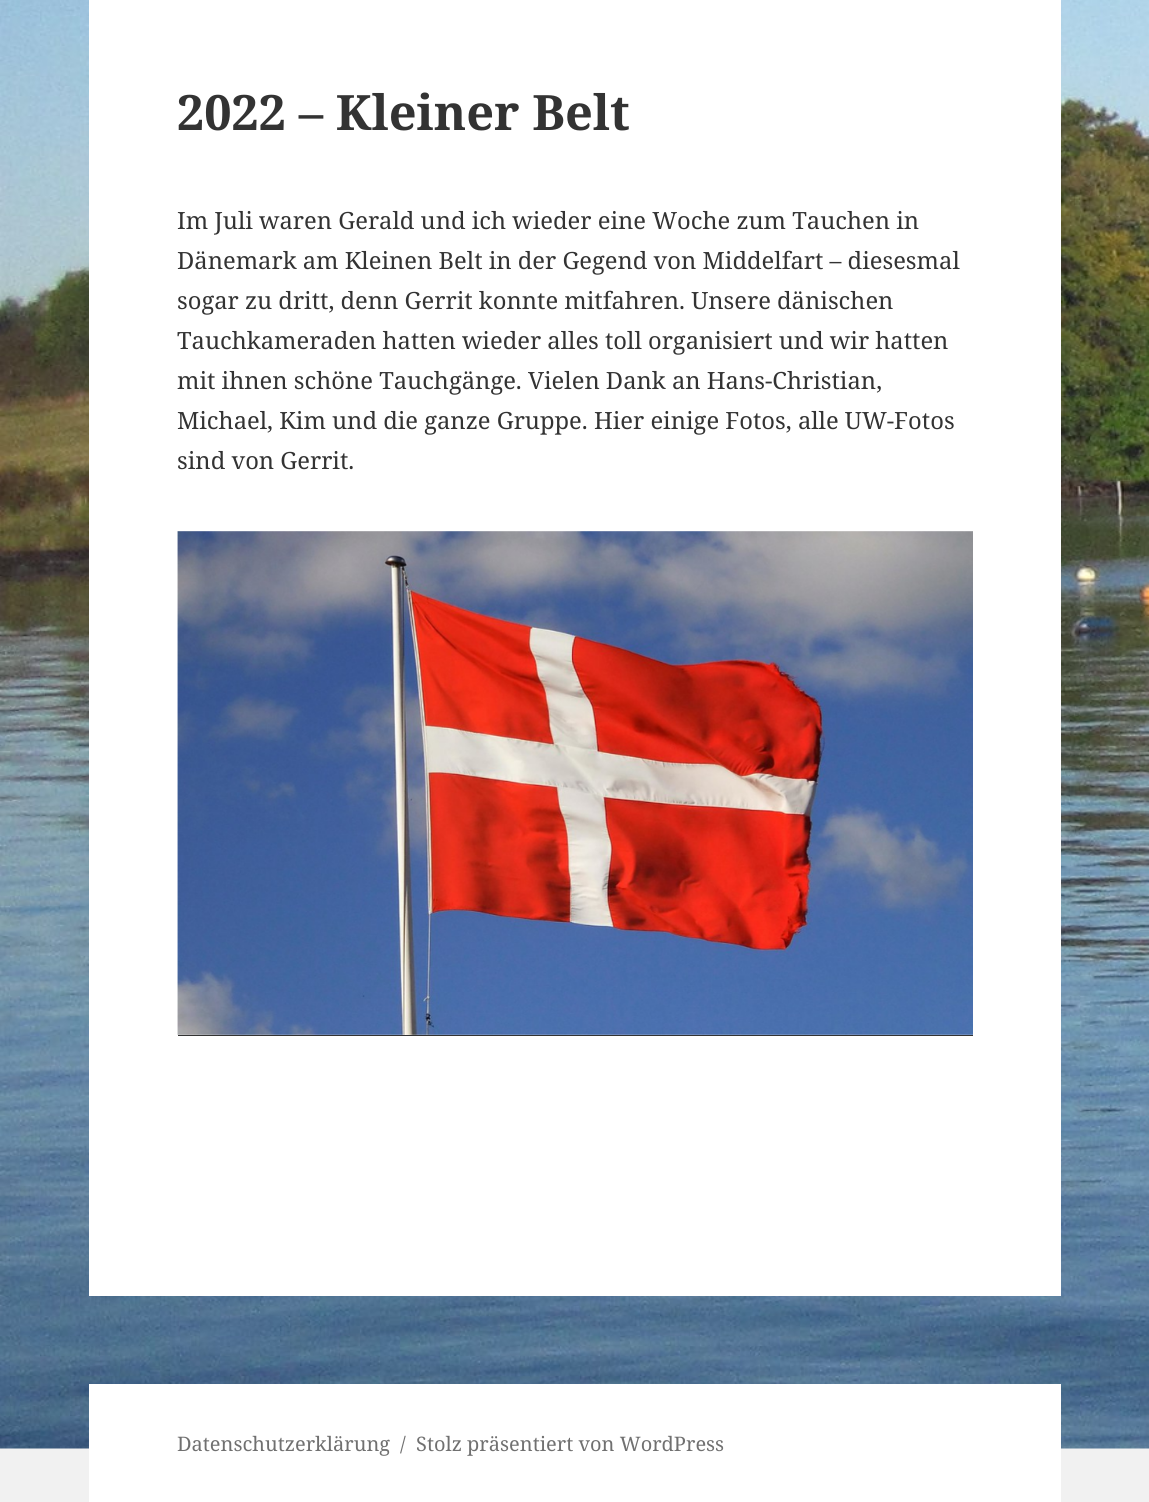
import math
import cairo

surface = cairo.ImageSurface(cairo.FORMAT_RGB24, 1149, 1502)
ctx = cairo.Context(surface)
options = cairo.FontOptions()
options.set_hint_metrics(cairo.HINT_METRICS_OFF)
options.set_hint_style(cairo.HINT_STYLE_NONE)
ctx.set_font_options(options)
ctx.set_miter_limit(4)


def set_color(code):
    ctx.set_source_rgb(*(v / 255 for v in bytes.fromhex(code[-6:])))


def draw_text(x, y, s, family, size, color, bold=False, italic=False):
    ctx.select_font_face(family, cairo.FONT_SLANT_ITALIC if italic else cairo.FONT_SLANT_NORMAL, cairo.FONT_WEIGHT_BOLD if bold else cairo.FONT_WEIGHT_NORMAL)
    ctx.set_font_size(size)
    set_color(color)
    ctx.move_to(x, y)
    ctx.show_text(s)


def fill_rect(x, y, w, h, color):
    set_color(color)
    ctx.rectangle(x, y, w, h)
    ctx.fill()


def draw_image(path, x, y, w, h):
    ctx.save()
    ctx.set_source_surface(cairo.ImageSurface.create_from_png(path), x, y)
    ctx.rectangle(x, y, w, h)
    ctx.fill()
    ctx.restore()


set_color("#f1f1f1")
ctx.paint()
draw_image("assets/img1.png", 0, 0, 1149, 1449)
fill_rect(89, 0, 972, 1296, "#ffffff")
draw_text(177, 130, "2022 – Kleiner Belt", "Noto Serif", 48.75, "#333333", bold=True)
draw_text(177, 229, "Im Juli waren Gerald und ich wieder eine Woche zum Tauchen in", "Noto Serif", 23.75, "#333333")
draw_text(177, 269, "Dänemark am Kleinen Belt in der Gegend von Middelfart – diesesmal", "Noto Serif", 23.75, "#333333")
draw_text(177, 309, "sogar zu dritt, denn Gerrit konnte mitfahren. Unsere dänischen", "Noto Serif", 23.75, "#333333")
draw_text(177, 349, "Tauchkameraden hatten wieder alles toll organisiert und wir hatten", "Noto Serif", 23.75, "#333333")
draw_text(177, 389, "mit ihnen schöne Tauchgänge. Vielen Dank an Hans-Christian,", "Noto Serif", 23.75, "#333333")
draw_text(177, 429, "Michael, Kim und die ganze Gruppe. Hier einige Fotos, alle UW-Fotos", "Noto Serif", 23.75, "#333333")
draw_text(177, 469, "sind von Gerrit.", "Noto Serif", 23.75, "#333333")
fill_rect(178, 1035, 795, 1, "#333333")
draw_image("assets/img2.png", 177, 531, 796, 504)
fill_rect(89, 1384, 972, 118, "#ffffff")
draw_text(177, 1451, "Datenschutzerklärung", "Noto Serif", 20, "#707070")
draw_text(400, 1451, "/", "Noto Serif", 20, "#707070")
draw_text(416, 1451, "Stolz präsentiert von WordPress", "Noto Serif", 20, "#707070")
surface.write_to_png("output.png")
